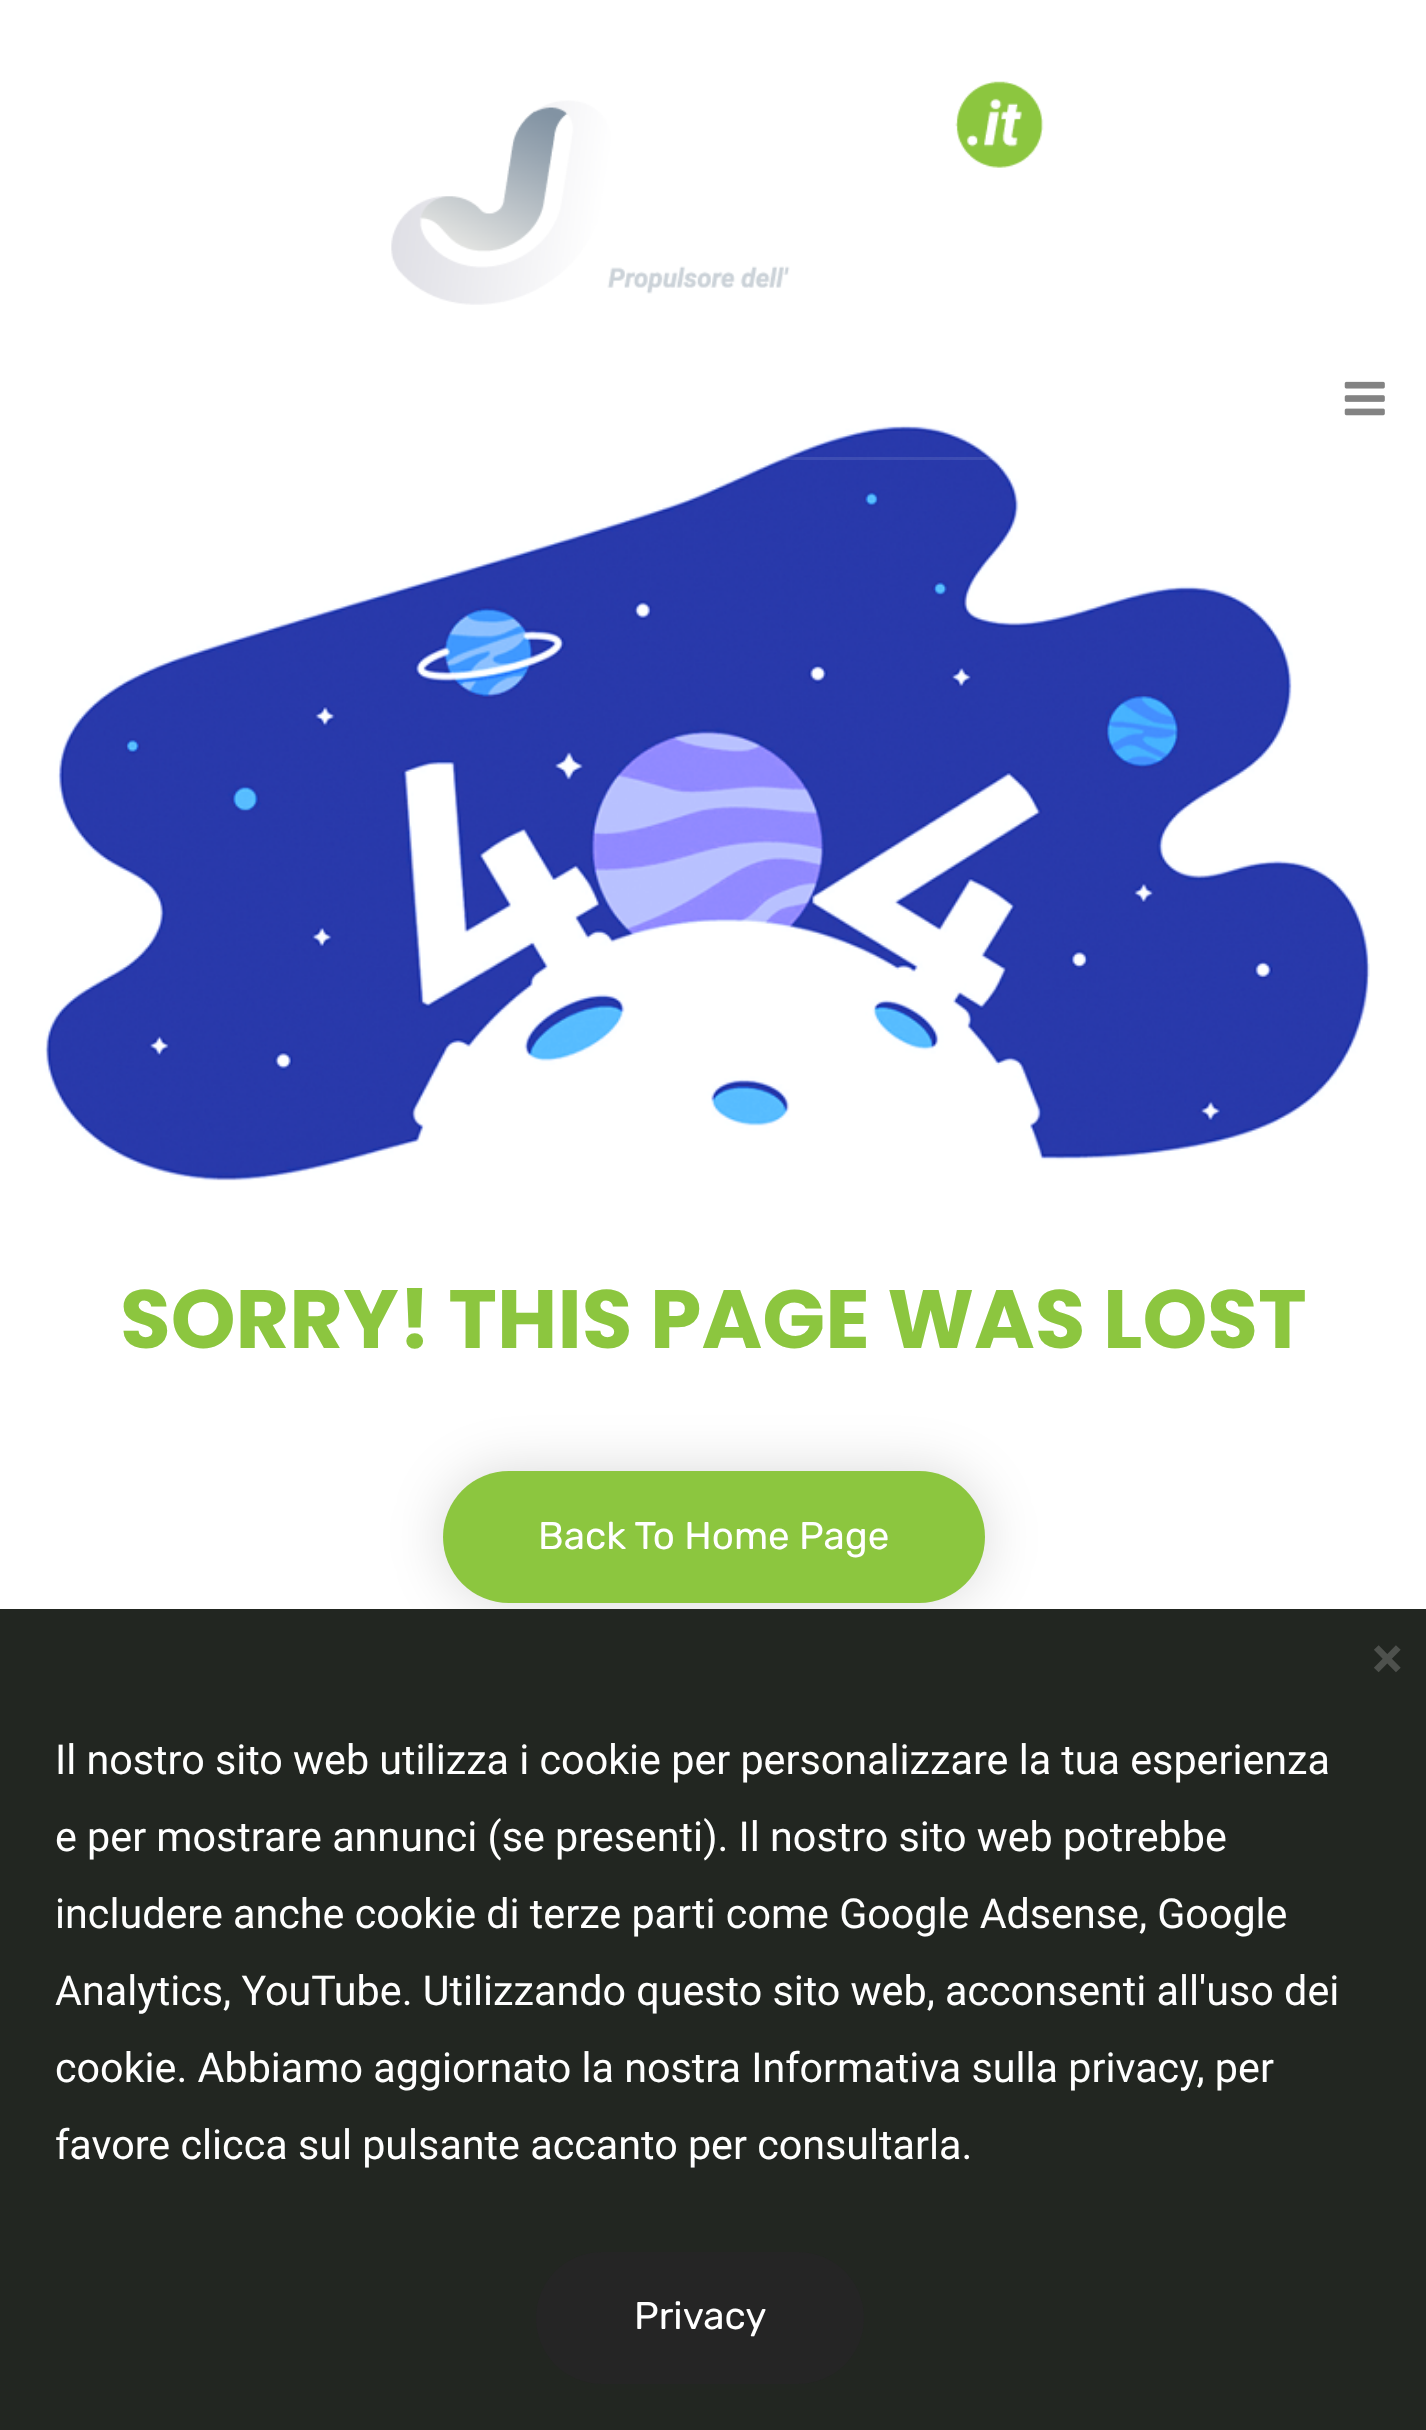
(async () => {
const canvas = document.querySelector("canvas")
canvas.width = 1426
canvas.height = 2430
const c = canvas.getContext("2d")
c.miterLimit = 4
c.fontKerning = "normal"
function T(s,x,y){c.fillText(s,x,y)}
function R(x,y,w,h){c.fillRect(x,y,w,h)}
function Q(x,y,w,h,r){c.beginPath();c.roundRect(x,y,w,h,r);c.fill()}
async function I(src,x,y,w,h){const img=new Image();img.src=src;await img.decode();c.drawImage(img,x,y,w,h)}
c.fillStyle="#fff"
R(0,0,1426,2430)
await I("3.png",45,425,1325,756)
c.fillStyle="#ffffff1a"
R(779,457,215,3)
await I("1.png",391,81,653,224)
await I("2.png",1344,381,41,35)
c.font="bold 82.5px Poppins"
c.fillStyle="#8cc63f"
T("SORRY! THIS PAGE WAS LOST",120,1348)
c.fillStyle="#00000026"
c.filter="blur(27.5px)"
c.beginPath()
c.roundRect(443,1471,542,132,66)
c.fill()
c.filter="none"
c.fillStyle="#8cc63f"
Q(443,1471,542,132,66)
c.font="38.5px Rubik"
c.fillStyle="#fff"
T("Back To Home Page",538,1549)
c.fillStyle="#222621"
R(0,1609,1426,821)
c.font="bold 58px Roboto"
c.fillStyle="#4e514d"
T("×",1372,1678)
c.font="41.25px Roboto"
c.fillStyle="#fff"
T("Il nostro sito web utilizza i cookie per personalizzare la tua esperienza",55,1774)
T("e per mostrare annunci (se presenti). Il nostro sito web potrebbe",55,1851)
T("includere anche cookie di terze parti come Google Adsense, Google",55,1928)
T("Analytics, YouTube. Utilizzando questo sito web, acconsenti all'uso dei",55,2005)
T("cookie. Abbiamo aggiornato la nostra Informativa sulla privacy, per",55,2082)
T("favore clicca sul pulsante accanto per consultarla.",55,2159)
c.fillStyle="#252525"
Q(536,2252,328,132,66)
c.font="38.5px Rubik"
c.fillStyle="#fff"
T("Privacy",634,2329)
})()
